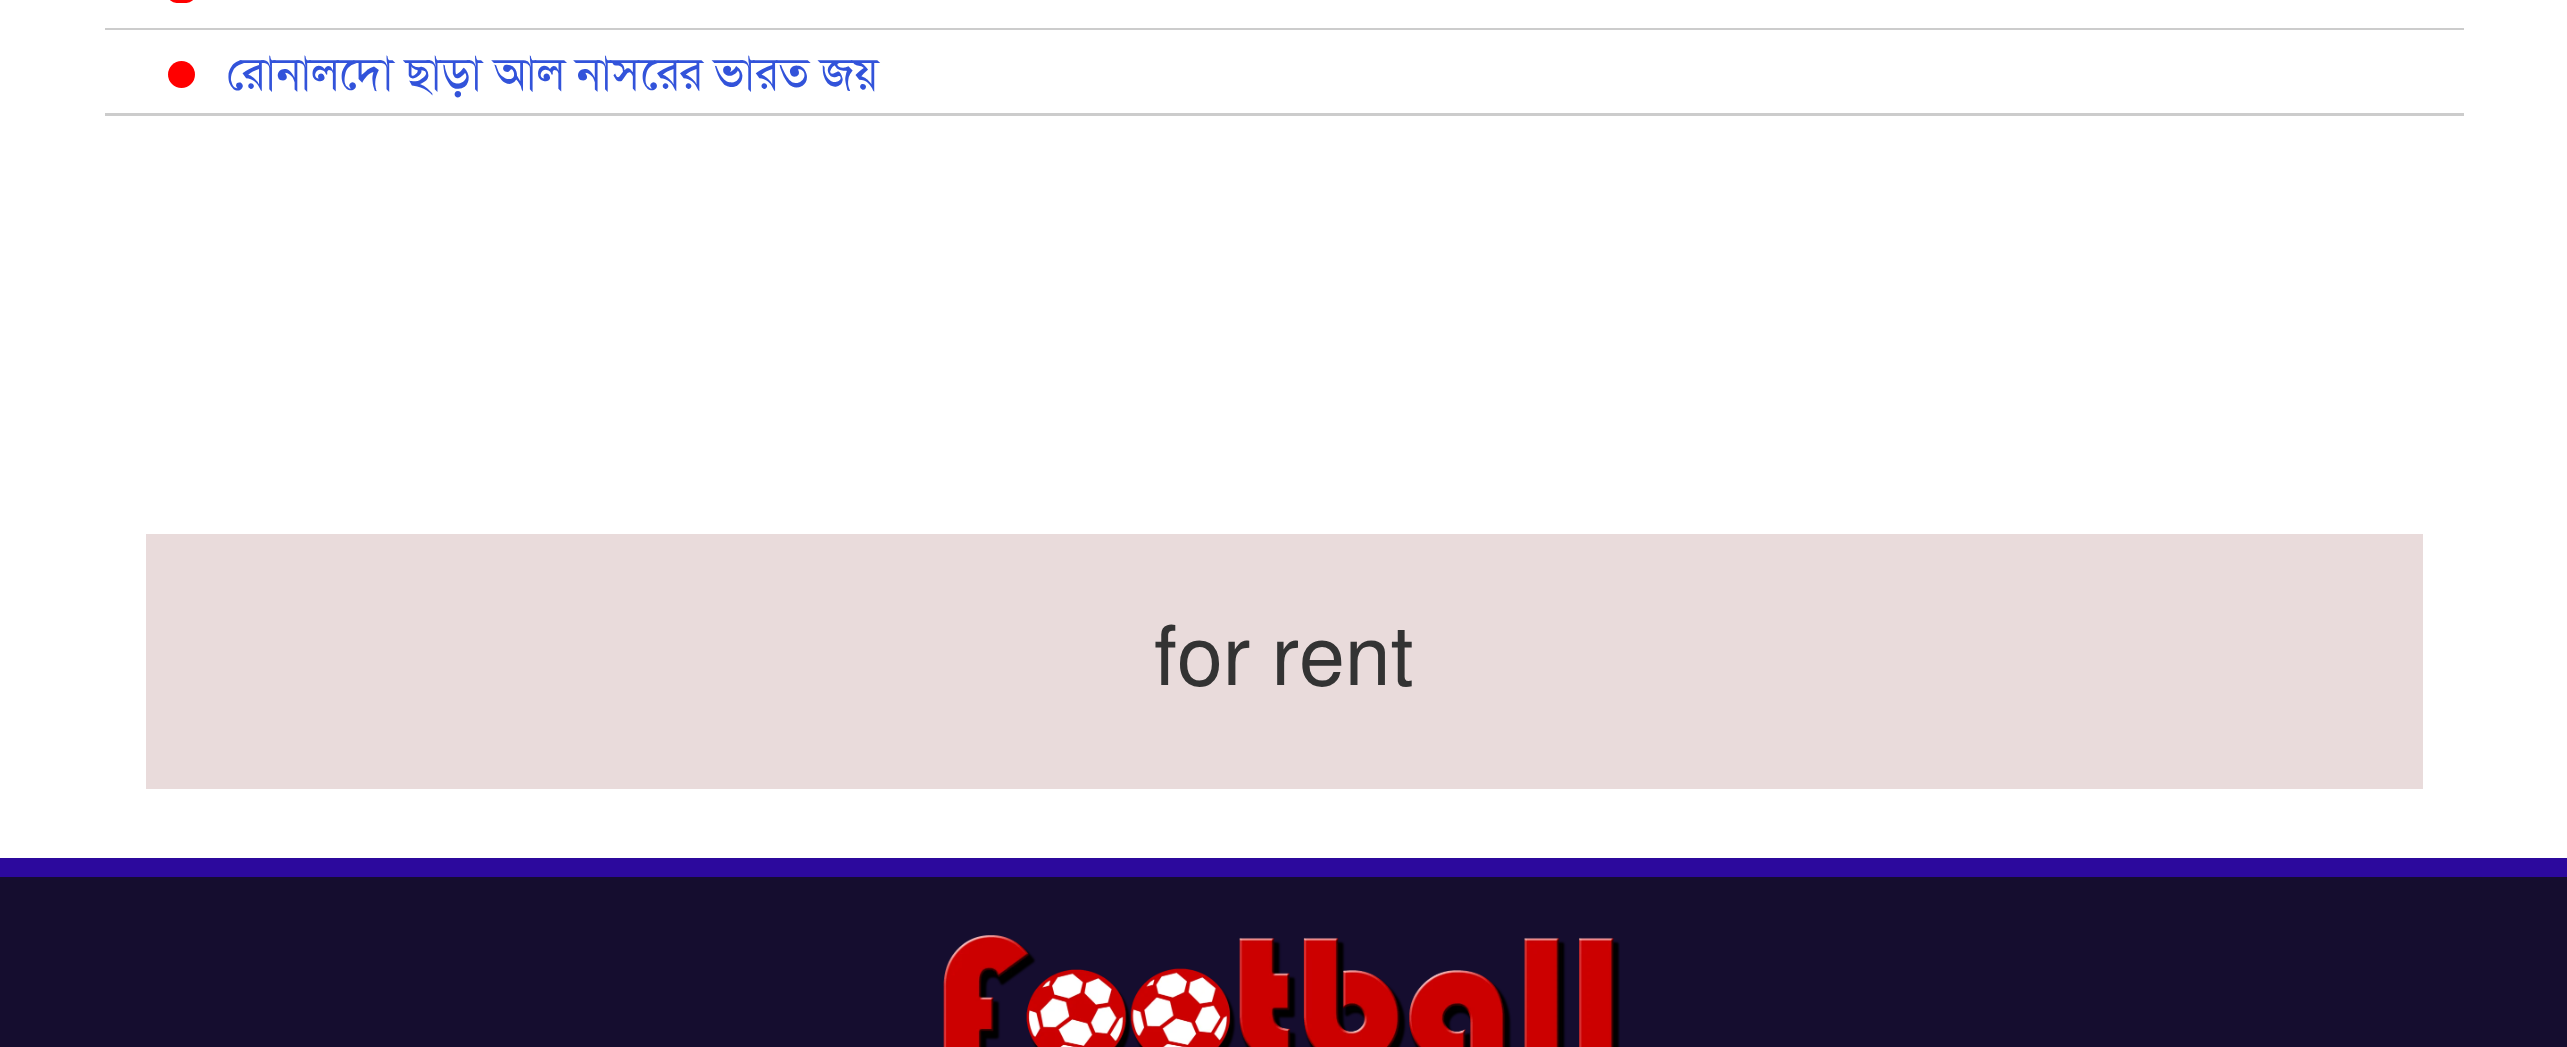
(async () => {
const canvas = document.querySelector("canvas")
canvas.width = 2567
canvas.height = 1047
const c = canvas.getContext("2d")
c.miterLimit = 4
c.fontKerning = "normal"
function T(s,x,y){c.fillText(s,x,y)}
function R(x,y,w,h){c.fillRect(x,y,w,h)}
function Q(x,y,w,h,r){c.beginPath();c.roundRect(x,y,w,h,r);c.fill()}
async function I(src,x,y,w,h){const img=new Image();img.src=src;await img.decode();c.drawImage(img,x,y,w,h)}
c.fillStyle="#fff"
R(0,0,2567,1047)
c.fillStyle="#ccc"
R(105,28,2359,2)
c.fillStyle="#f00"
Q(168,-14,27,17,13.5)
c.fillStyle="#ccc"
R(105,113,2359,3)
c.fillStyle="#f00"
c.beginPath()
c.arc(181.5,74.5,13.5,0,7)
c.fill()
c.font="46.25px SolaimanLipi"
c.fillStyle="#3253da"
T("রোনালদো ছাড়া আল নাসরের ভারত জয়",227,89)
c.fillStyle="#e9dbdb"
R(146,534,2277,255)
c.font="82.5px SolaimanLipi"
c.fillStyle="#333"
T("for rent",1154,685)
c.fillStyle="#150d2f"
R(0,877,2567,170)
c.fillStyle="#2c099d"
R(0,858,2567,19)
await I("1.png",943,935,677,112)
})()
